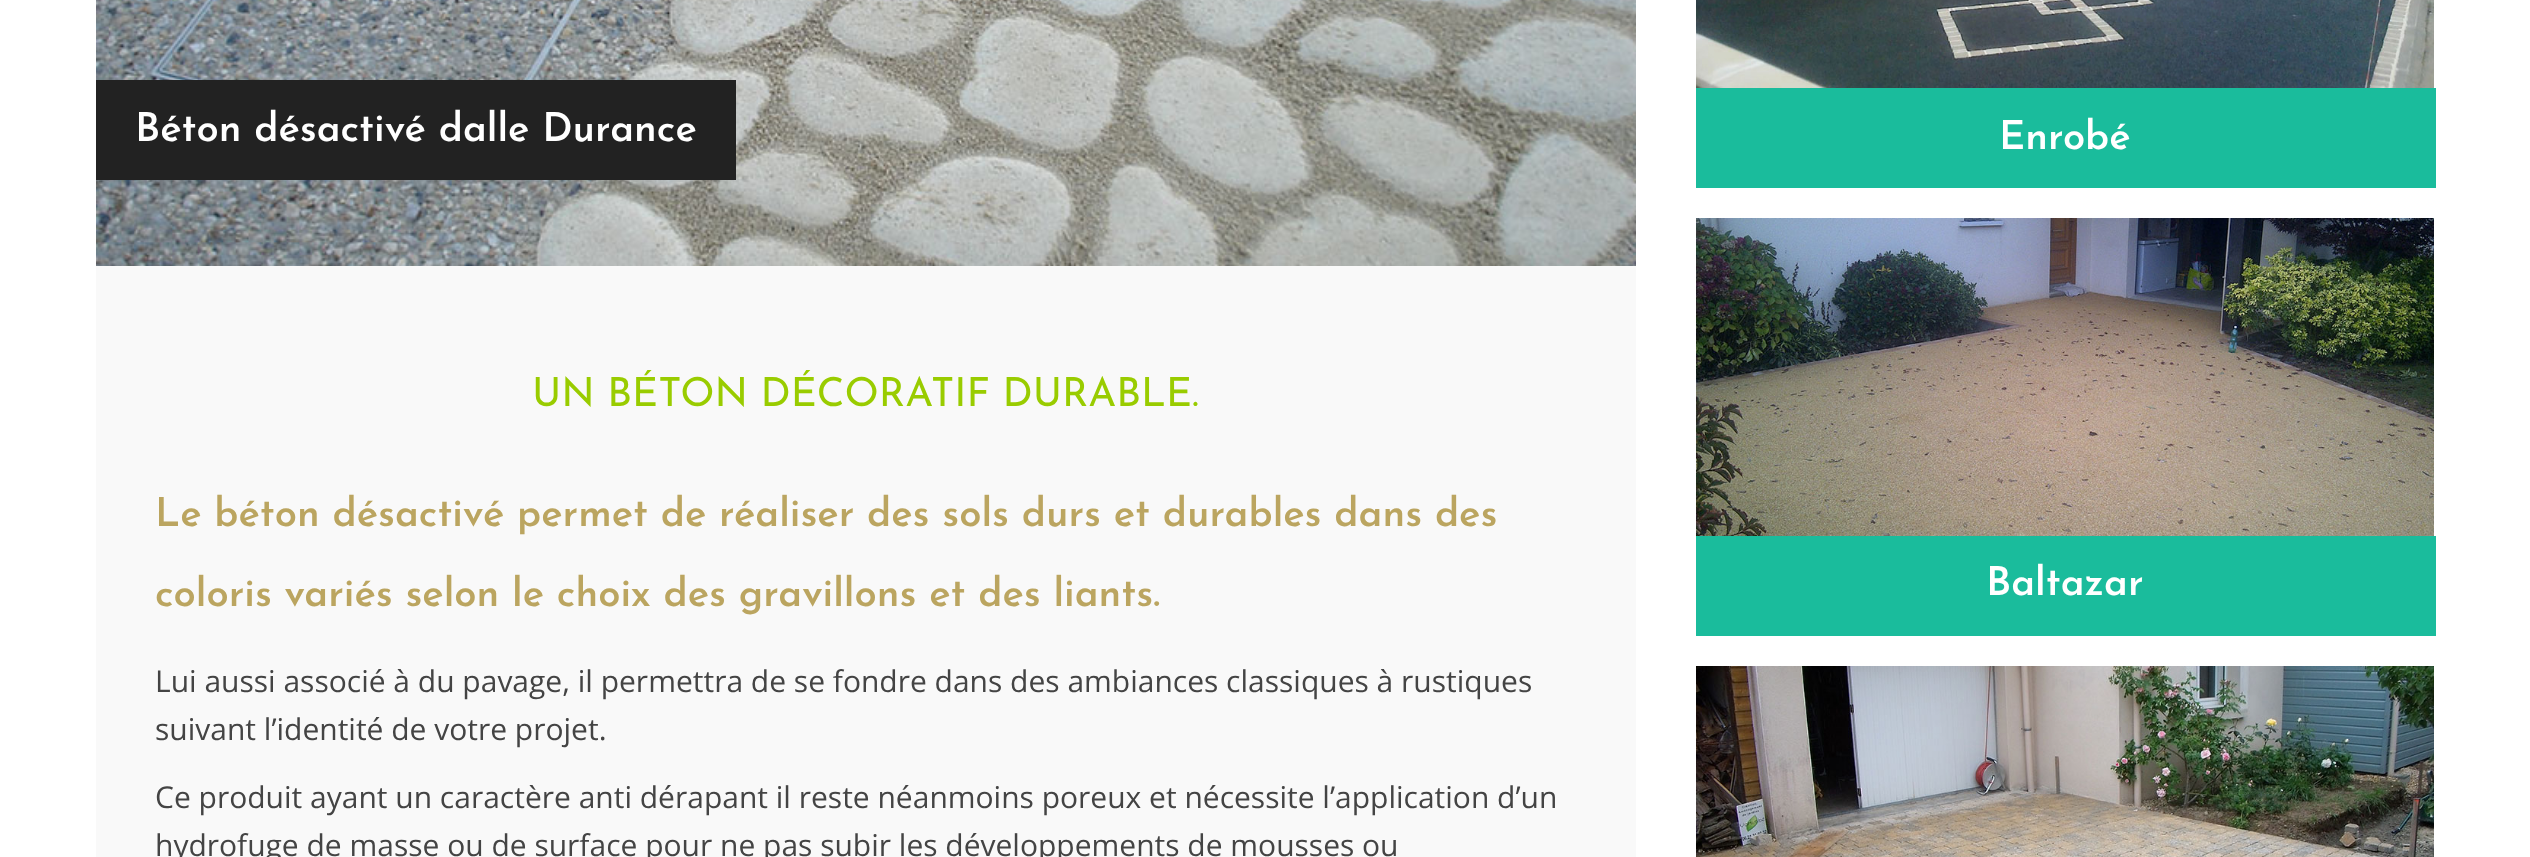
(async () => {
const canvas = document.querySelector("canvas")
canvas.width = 2530
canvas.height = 857
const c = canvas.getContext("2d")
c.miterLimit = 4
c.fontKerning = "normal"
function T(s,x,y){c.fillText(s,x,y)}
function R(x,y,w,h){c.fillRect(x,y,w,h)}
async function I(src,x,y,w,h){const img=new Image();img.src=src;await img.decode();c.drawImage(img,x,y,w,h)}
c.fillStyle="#fff"
R(0,0,2530,857)
await I("1.png",96,0,1540,266)
c.fillStyle="#222"
R(96,80,640,100)
c.font="600 40px Josefin Sans"
c.fillStyle="#fff"
T("Béton désactivé dalle Durance",135,141)
c.fillStyle="#f9f9f9"
R(96,266,1540,591)
c.font="40px Josefin Sans"
c.fillStyle="#9c0"
T("UN BÉTON DÉCORATIF DURABLE.",532,406)
c.font="600 40px Josefin Sans"
c.fillStyle="#bba560"
T("Le béton désactivé permet de réaliser des sols durs et durables dans des",155,526)
T("coloris variés selon le choix des gravillons et des liants.",155,606)
c.font="30px Open Sans"
c.fillStyle="#444"
T("Lui aussi associé à du pavage, il permettra de se fondre dans des ambiances classiques à rustiques",155,692)
T("suivant l’identité de votre projet.",155,740)
T("Ce produit ayant un caractère anti dérapant il reste néanmoins poreux et nécessite l’application d’un",155,808)
T("hydrofuge de masse ou de surface pour ne pas subir les développements de mousses ou",155,856)
await I("2.png",1696,0,738,88)
c.fillStyle="#1abc9c"
R(1696,88,740,100)
c.font="600 40px Josefin Sans"
c.fillStyle="#fff"
T("Enrobé",1999,149)
await I("3.png",1696,218,738,318)
c.fillStyle="#1abc9c"
R(1696,536,740,100)
c.fillStyle="#fff"
T("Baltazar",1986,595)
await I("4.png",1696,666,738,191)
})()
